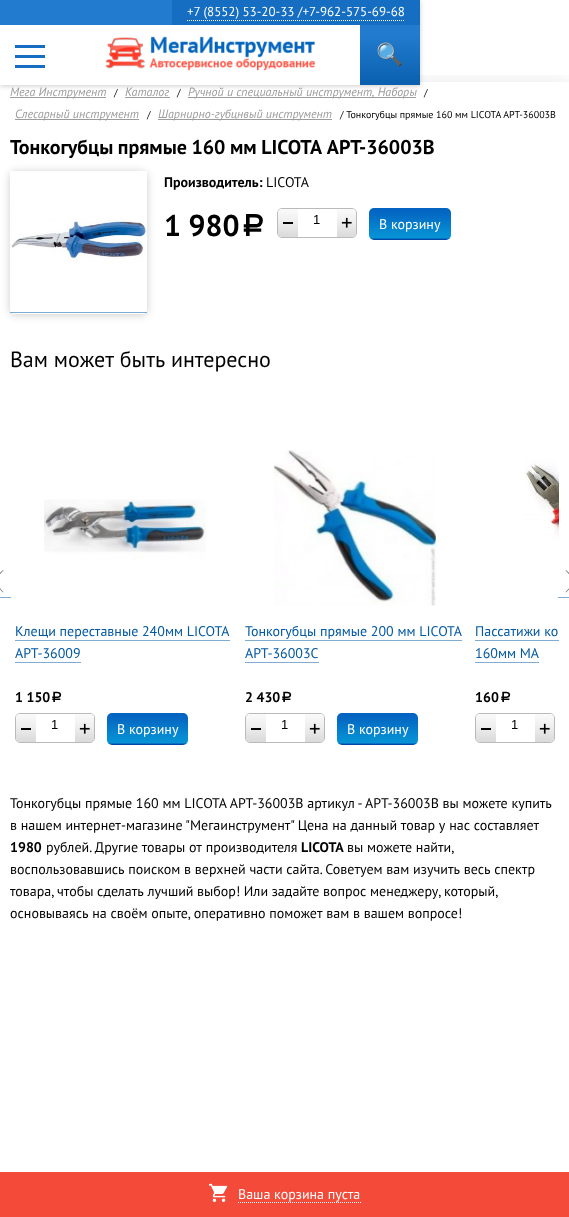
(async () => {
const canvas = document.querySelector("canvas")
canvas.width = 569
canvas.height = 1217
const c = canvas.getContext("2d")
c.miterLimit = 4
c.fontKerning = "normal"
function T(s,x,y){c.fillText(s,x,y)}
function R(x,y,w,h){c.fillRect(x,y,w,h)}
function Q(x,y,w,h,r){c.beginPath();c.roundRect(x,y,w,h,r);c.fill()}
async function I(src,x,y,w,h){const img=new Image();img.src=src;await img.decode();c.drawImage(img,x,y,w,h)}
let gradient, path
c.fillStyle="#fff"
R(0,0,569,1217)
c.fillStyle="#00000033"
c.filter="blur(2.5px)"
c.beginPath()
c.rect(0,1,420,85)
c.fill()
c.filter="none"
c.save()
c.beginPath()
c.rect(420,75,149,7)
c.clip()
c.fillStyle="#0000001a"
c.filter="blur(10px)"
c.beginPath()
c.rect(0,83,569,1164)
c.fill()
c.filter="none"
c.restore()
c.fillStyle="#fff"
R(0,25,360,60)
c.fillStyle="#227bce"
R(0,0,172,25)
c.fillStyle="#156ec1"
R(172,0,248,25)
c.font="13px PT Sans"
c.fillStyle="#fff"
T("+7 (8552) 53-20-33 /+7-962-575-69-68",187,16)
path = new Path2D("M187 20.5h52")
c.strokeStyle="#fff"
c.setLineDash([1,1])
c.stroke(path)
path = new Path2D("M239 20.5h166")
c.stroke(path)
c.fillStyle="#156ec1"
R(15,45,30,3)
R(15,55,30,3)
R(15,65,30,3)
await I("1.png",105,36,210,35)
gradient = c.createLinearGradient(390,25,390,85)
gradient.addColorStop(.17,"#227bce")
gradient.addColorStop(1,"#0a60af")
c.fillStyle = gradient
R(360,25,60,60)
c.font="22px Noto Color Emoji"
c.fillStyle="#fff"
T("🔍",376,62)
c.fillStyle="#9c9c9c"
R(10,97,96,1)
c.font="italic 12px PT Sans"
T("Мега Инструмент",10,96)
c.font="10px PT Sans"
c.fillStyle="#000"
T("/",114,96)
c.fillStyle="#9c9c9c"
R(125,97,45,1)
c.font="italic 12px PT Sans"
T("Каталог",125,96)
c.font="10px PT Sans"
c.fillStyle="#000"
T("/",177,96)
c.fillStyle="#9c9c9c"
R(188,97,228,1)
c.font="italic 12px PT Sans"
T("Ручной и специальный инструмент, Наборы",188,96)
c.font="10px PT Sans"
c.fillStyle="#000"
T("/",424,96)
c.fillStyle="#9c9c9c"
R(15,119,124,1)
c.font="italic 12px PT Sans"
T("Слесарный инструмент",15,118)
c.font="10px PT Sans"
c.fillStyle="#000"
T("/",147,118)
c.fillStyle="#9c9c9c"
R(158,119,174,1)
c.font="italic 12px PT Sans"
T("Шарнирно-губцнвый инструмент",158,118)
c.font="10px PT Sans"
c.fillStyle="#000"
T("/ Тонкогубцы прямые 160 мм LICOTA APT-36003B",340,118)
c.wordSpacing="-0.5px"
c.font="bold 20px PT Sans"
T("Тонкогубцы прямые 160 мм LICOTA APT-36003B",10,154)
c.save()
path = new Path2D("M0 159h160v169h-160zm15 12h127c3 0 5 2 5 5v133c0 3-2 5-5 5h-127c-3 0-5-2-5-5v-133c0-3 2-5 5-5z")
c.clip(path,"evenodd")
c.fillStyle="#00000033"
c.filter="blur(4px)"
c.beginPath()
c.roundRect(10,172,137,143,5)
c.fill()
c.filter="none"
c.restore()
await I("2.png",10,171,137,92)
c.fillStyle="#0258a280"
R(10,312,137,1)
c.wordSpacing="0px"
c.font="bold 14px PT Sans"
c.fillStyle="#000"
T("Производитель:",164,187)
c.font="14px PT Sans"
T("LICOTA",266,187)
c.font="bold 30px PT Sans"
T("1 980",164,236)
c.font="bold 30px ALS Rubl"
T("a",239,236)
c.beginPath()
c.roundRect(277.5,208.5,79,29,4.5)
c.strokeStyle="#bababa"
c.setLineDash([])
c.stroke()
gradient = c.createLinearGradient(288,209,288,237)
gradient.addColorStop(0,"#fafafa")
gradient.addColorStop(.43,"#efefef")
gradient.addColorStop(.93,"#dcdcdc")
gradient.addColorStop(1,"#dbdbdb")
c.fillStyle = gradient
c.beginPath()
c.roundRect(278,209,20,28,[4,0,0,4])
c.fill()
c.fillStyle="#000"
R(283,222,10,2)
c.font="13px Liberation Sans"
T("1",313,224)
gradient = c.createLinearGradient(347,209,347,237)
gradient.addColorStop(0,"#fafafa")
gradient.addColorStop(.43,"#efefef")
gradient.addColorStop(.93,"#dcdcdc")
gradient.addColorStop(1,"#dbdbdb")
c.fillStyle = gradient
c.beginPath()
c.roundRect(337,209,19,28,[0,4,4,0])
c.fill()
await I("3.png",341,217,11,11)
gradient = c.createLinearGradient(410,208,410,240)
gradient.addColorStop(0,"#0462c1")
gradient.addColorStop(.23,"#046bc4")
gradient.addColorStop(.74,"#068bd2")
gradient.addColorStop(.94,"#0693d5")
gradient.addColorStop(.97,"#0346a9")
gradient.addColorStop(1,"#0346a9")
c.fillStyle = gradient
Q(369,208,82,32,5)
c.font="14px PT Sans"
c.fillStyle="#fff"
T("В корзину",379,229)
c.font="22px PT Sans"
c.fillStyle="#000"
T("Вам может быть интересно",10,367)
c.fillStyle="#81acd1"
R(0,597,11,1)
c.fillStyle="#808080"
path = new Path2D("M-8.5 581l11.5-11l.5 .5l-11 11.5zm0 0l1-.5l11 11.5l-.5 .5z")
c.fill(path)
c.fillStyle="#81acd1"
R(558,597,11,1)
c.fillStyle="#808080"
path = new Path2D("M566 570l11.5 11l-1 1l-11-11.5zm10.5 10.5l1 .5l-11.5 11.5l-.5-.5z")
c.fill(path)
await I("4.png",44,499,162,61)
c.font="14px PT Sans"
c.fillStyle="#0258a2"
T("Клещи переставные 240мм LICOTA",15,636)
c.fillStyle="#81acd1"
R(15,640,215,1)
c.fillStyle="#0258a2"
T("APT-36009",15,658)
c.fillStyle="#81acd1"
R(15,662,66,1)
c.font="bold 14px PT Sans"
c.fillStyle="#000"
T("1 150",15,702)
c.font="bold 14px ALS Rubl"
T("a",50,702)
c.beginPath()
c.roundRect(15.5,713.5,79,29,4.5)
c.stroke()
gradient = c.createLinearGradient(26,714,26,742)
gradient.addColorStop(0,"#fafafa")
gradient.addColorStop(.43,"#efefef")
gradient.addColorStop(.93,"#dcdcdc")
gradient.addColorStop(1,"#dbdbdb")
c.fillStyle = gradient
c.beginPath()
c.roundRect(16,714,20,28,[4,0,0,4])
c.fill()
c.fillStyle="#000"
R(21,728,10,2)
c.font="13px Liberation Sans"
T("1",51,729)
gradient = c.createLinearGradient(85,714,85,742)
gradient.addColorStop(0,"#fafafa")
gradient.addColorStop(.43,"#efefef")
gradient.addColorStop(.93,"#dcdcdc")
gradient.addColorStop(1,"#dbdbdb")
c.fillStyle = gradient
c.beginPath()
c.roundRect(75,714,19,28,[0,4,4,0])
c.fill()
await I("5.png",79,723,11,11)
gradient = c.createLinearGradient(148,713,148,745)
gradient.addColorStop(0,"#0462c1")
gradient.addColorStop(.23,"#046bc4")
gradient.addColorStop(.74,"#068bd2")
gradient.addColorStop(.94,"#0693d5")
gradient.addColorStop(.97,"#0346a9")
gradient.addColorStop(1,"#0346a9")
c.fillStyle = gradient
Q(107,713,81,32,5)
c.font="14px PT Sans"
c.fillStyle="#fff"
T("В корзину",117,734)
await I("6.png",274,449,162,157)
c.fillStyle="#0258a2"
T("Тонкогубцы прямые 200 мм LICOTA",245,636)
c.fillStyle="#81acd1"
R(245,640,217,1)
c.fillStyle="#0258a2"
T("APT-36003C",245,658)
c.fillStyle="#81acd1"
R(245,662,74,1)
c.font="bold 14px PT Sans"
c.fillStyle="#000"
T("2 430",245,702)
c.font="bold 14px ALS Rubl"
T("a",280,702)
c.beginPath()
c.roundRect(245.5,713.5,79,29,4.5)
c.stroke()
gradient = c.createLinearGradient(256,714,256,742)
gradient.addColorStop(0,"#fafafa")
gradient.addColorStop(.43,"#efefef")
gradient.addColorStop(.93,"#dcdcdc")
gradient.addColorStop(1,"#dbdbdb")
c.fillStyle = gradient
c.beginPath()
c.roundRect(246,714,20,28,[4,0,0,4])
c.fill()
c.fillStyle="#000"
R(251,728,10,2)
c.font="13px Liberation Sans"
T("1",281,729)
gradient = c.createLinearGradient(315,714,315,742)
gradient.addColorStop(0,"#fafafa")
gradient.addColorStop(.43,"#efefef")
gradient.addColorStop(.93,"#dcdcdc")
gradient.addColorStop(1,"#dbdbdb")
c.fillStyle = gradient
c.beginPath()
c.roundRect(305,714,19,28,[0,4,4,0])
c.fill()
await I("5.png",309,723,11,11)
gradient = c.createLinearGradient(378,713,378,745)
gradient.addColorStop(0,"#0462c1")
gradient.addColorStop(.23,"#046bc4")
gradient.addColorStop(.74,"#068bd2")
gradient.addColorStop(.94,"#0693d5")
gradient.addColorStop(.97,"#0346a9")
gradient.addColorStop(1,"#0346a9")
c.fillStyle = gradient
Q(337,713,81,32,5)
c.font="14px PT Sans"
c.fillStyle="#fff"
T("В корзину",347,734)
await I("7.png",523,459,36,80)
c.fillStyle="#0258a2"
T("Пассатижи ко",475,636)
c.fillStyle="#81acd1"
R(475,640,84,1)
c.fillStyle="#0258a2"
T("160мм МА",475,658)
c.fillStyle="#81acd1"
R(475,662,64,1)
c.font="bold 14px PT Sans"
c.fillStyle="#000"
T("160",475,702)
c.font="bold 14px ALS Rubl"
T("a",499,702)
c.beginPath()
c.roundRect(475.5,713.5,79,29,4.5)
c.stroke()
gradient = c.createLinearGradient(486,714,486,742)
gradient.addColorStop(0,"#fafafa")
gradient.addColorStop(.43,"#efefef")
gradient.addColorStop(.93,"#dcdcdc")
gradient.addColorStop(1,"#dbdbdb")
c.fillStyle = gradient
c.beginPath()
c.roundRect(476,714,20,28,[4,0,0,4])
c.fill()
c.fillStyle="#000"
R(481,728,10,2)
c.font="13px Liberation Sans"
T("1",511,729)
gradient = c.createLinearGradient(545,714,545,742)
gradient.addColorStop(0,"#fafafa")
gradient.addColorStop(.43,"#efefef")
gradient.addColorStop(.93,"#dcdcdc")
gradient.addColorStop(1,"#dbdbdb")
c.fillStyle = gradient
c.beginPath()
c.roundRect(535,714,19,28,[0,4,4,0])
c.fill()
await I("5.png",539,723,11,11)
c.font="14px PT Sans"
c.fillStyle="#000"
T("Тонкогубцы прямые 160 мм LICOTA APT-36003B артикул - APT-36003B вы можете купить",10,808)
T("в нашем интернет-магазине \"Мегаинструмент\" Цена на данный товар у нас составляет",10,830)
c.font="bold 14px PT Sans"
T("1980",10,852)
c.font="14px PT Sans"
T("рублей. Другие товары от производителя",46,852)
c.font="bold 14px PT Sans"
T("LICOTA",301,852)
c.font="14px PT Sans"
T("вы можете найти,",347,852)
T("воспользовавшись поиском в верхней части сайта. Советуем вам изучить весь спектр",10,874)
c.wordSpacing="-0.1px"
T("товара, чтобы сделать лучший выбор! Или задайте вопрос менеджеру, который,",10,896)
c.wordSpacing="0px"
T("основываясь на своём опыте, оперативно поможет вам в вашем вопросе!",10,918)
c.fillStyle="#f44a39"
R(0,1172,569,45)
await I("8.png",209,1183,19,20)
path = new Path2D("M238 1202.5h123")
c.strokeStyle="#fff"
c.setLineDash([1,1])
c.stroke(path)
c.fillStyle="#fff"
T("Ваша корзина пуста",238,1199)
})()
